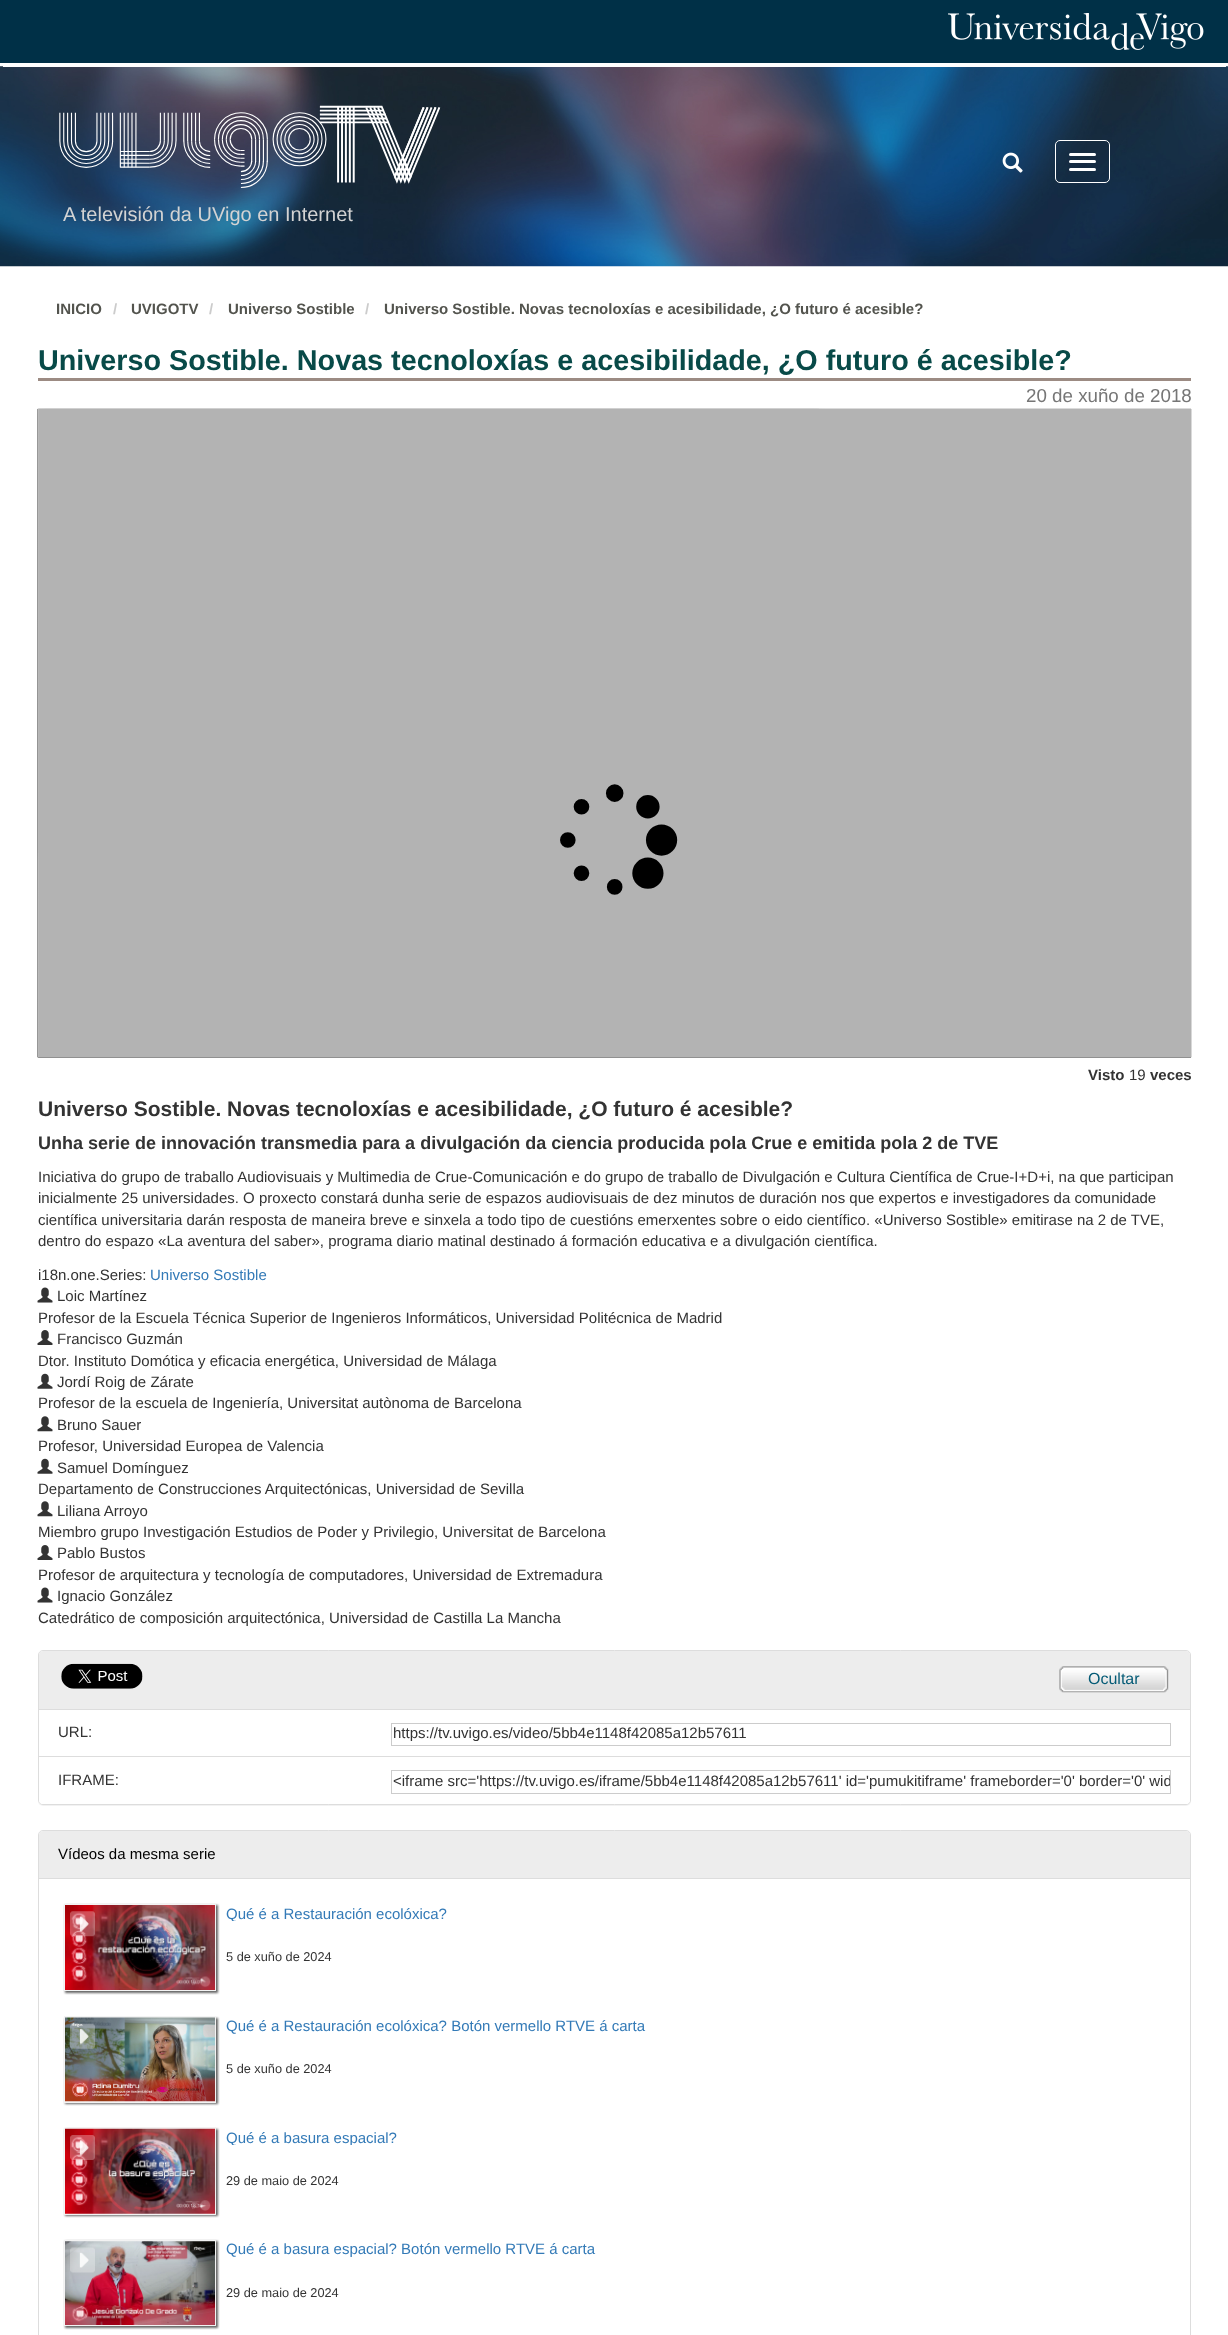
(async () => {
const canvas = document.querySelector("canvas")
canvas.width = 1228
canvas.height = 2335
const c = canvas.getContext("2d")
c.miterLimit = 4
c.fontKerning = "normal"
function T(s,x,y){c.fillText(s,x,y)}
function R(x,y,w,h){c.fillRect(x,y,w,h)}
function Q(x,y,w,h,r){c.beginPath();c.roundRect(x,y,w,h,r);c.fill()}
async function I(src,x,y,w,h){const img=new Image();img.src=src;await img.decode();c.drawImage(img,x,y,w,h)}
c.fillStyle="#fff"
R(0,0,1228,2335)
await I("2.png",0,66,1228,201)
R(3,66,1223,1)
c.fillStyle="#003047"
R(0,0,1228,63)
await I("1.png",948,13,256,37)
await I("3.png",1002,152,21,21)
c.beginPath()
c.roundRect(1055.5,140.5,54,42,4.5)
c.strokeStyle="#fff"
c.stroke()
c.fillStyle="#fff"
Q(1069,153,27,3,1.5)
Q(1069,160,27,3,1.5)
Q(1069,168,27,3,1.5)
await I("4.png",59,105,382,83)
c.font="20px Liberation Sans"
c.fillStyle="#d3d3d3"
T("A televisión da UVigo en Internet",63,221)
c.font="bold 15px Liberation Sans"
c.fillStyle="#53544e"
T("INICIO",56,314)
c.fillStyle="#ccc"
T("/",113,314)
c.fillStyle="#53544e"
T("UVIGOTV",131,314)
c.fillStyle="#ccc"
T("/",209,314)
c.fillStyle="#53544e"
T("Universo Sostible",228,314)
c.fillStyle="#ccc"
T("/",365,314)
c.fillStyle="#53544e"
T("Universo Sostible. Novas tecnoloxías e acesibilidade, ¿O futuro é acesible?",384,314)
c.fillStyle="#9c8b83"
R(38,378,1153,3)
c.font="bold 28.75px Liberation Sans"
c.fillStyle="#084a48"
T("Universo Sostible. Novas tecnoloxías e acesibilidade, ¿O futuro é acesible?",38,370)
c.font="18.75px Liberation Sans"
c.fillStyle="#767676"
T("20 de xuño de 2018",1026,402)
await I("5.png",37,408,1155,650)
c.font="bold 15px Liberation Sans"
c.fillStyle="#333"
T("Visto",1088,1080)
c.font="15px Liberation Sans"
T("19",1129,1080)
c.font="bold 15px Liberation Sans"
T("veces",1150,1080)
c.font="bold 21px Liberation Sans"
T("Universo Sostible. Novas tecnoloxías e acesibilidade, ¿O futuro é acesible?",38,1116)
c.font="bold 18px Liberation Sans"
T("Unha serie de innovación transmedia para a divulgación da ciencia producida pola Crue e emitida pola 2 de TVE",38,1149)
c.font="15px Liberation Sans"
T("Iniciativa do grupo de traballo Audiovisuais y Multimedia de Crue-Comunicación e do grupo de traballo de Divulgación e Cultura Científica de Crue-I+D+i, na que participan",38,1182)
T("inicialmente 25 universidades. O proxecto constará dunha serie de espazos audiovisuais de dez minutos de duración nos que expertos e investigadores da comunidade",38,1203)
T("científica universitaria darán resposta de maneira breve e sinxela a todo tipo de cuestións emerxentes sobre o eido científico. «Universo Sostible» emitirase na 2 de TVE,",38,1225)
T("dentro do espazo «La aventura del saber», programa diario matinal destinado á formación educativa e a divulgación científica.",38,1246)
T("i18n.one.Series:",38,1280)
c.fillStyle="#337ab7"
T("Universo Sostible",150,1280)
await I("6.png",37,1287,16,16)
c.fillStyle="#333"
T("Loic Martínez",57,1301)
T("Profesor de la Escuela Técnica Superior de Ingenieros Informáticos, Universidad Politécnica de Madrid",38,1323)
await I("7.png",37,1330,16,15)
T("Francisco Guzmán",57,1344)
T("Dtor. Instituto Domótica y eficacia energética, Universidad de Málaga",38,1366)
await I("8.png",37,1373,16,16)
T("Jordí Roig de Zárate",57,1387)
T("Profesor de la escuela de Ingeniería, Universitat autònoma de Barcelona",38,1408)
await I("9.png",37,1416,16,16)
T("Bruno Sauer",57,1430)
T("Profesor, Universidad Europea de Valencia",38,1451)
await I("8.png",37,1458,16,16)
T("Samuel Domínguez",57,1473)
T("Departamento de Construcciones Arquitectónicas, Universidad de Sevilla",38,1494)
await I("9.png",37,1501,16,16)
T("Liliana Arroyo",57,1516)
T("Miembro grupo Investigación Estudios de Poder y Privilegio, Universitat de Barcelona",38,1537)
await I("7.png",37,1545,16,15)
T("Pablo Bustos",57,1558)
T("Profesor de arquitectura y tecnología de computadores, Universidad de Extremadura",38,1580)
await I("6.png",37,1587,16,16)
T("Ignacio González",57,1601)
T("Catedrático de composición arquitectónica, Universidad de Castilla La Mancha",38,1623)
c.fillStyle="#0000000d"
c.filter="blur(0.5px)"
c.beginPath()
c.roundRect(38,1651,1153,155,5)
c.fill()
c.filter="none"
c.fillStyle="#fff"
c.beginPath()
c.roundRect(38.5,1650.5,1152,154,4.5)
c.fill()
c.strokeStyle="#ddd"
c.stroke()
c.fillStyle="#ededed"
c.beginPath()
c.roundRect(39,1651,1151,59,[4,4,0,0])
c.fill()
c.fillStyle="#ddd"
R(39,1709,1151,1)
await I("10.png",61,1663,82,26)
await I("11.png",1059,1666,110,27)
c.font="16px Liberation Sans"
c.fillStyle="#055b76"
T("Ocultar",1088,1684)
c.font="15px Liberation Sans"
c.fillStyle="#333"
T("URL:",58,1737)
c.strokeStyle="#ccc"
c.strokeRect(391.5,1723.5,779,22)
T("https://tv.uvigo.es/video/5bb4e1148f42085a12b57611",393,1738)
c.fillStyle="#fff"
c.beginPath()
c.roundRect(39,1756,1151,48,[0,0,4,4])
c.fill()
c.fillStyle="#ddd"
R(39,1756,1151,1)
c.fillStyle="#333"
T("IFRAME:",58,1785)
c.strokeRect(391.5,1770.5,779,23)
c.save()
c.beginPath()
c.rect(393,1771,777,22)
c.clip()
T("<iframe src='https://tv.uvigo.es/iframe/5bb4e1148f42085a12b57611' id='pumukitiframe' frameborder='0' border='0' wid",393,1786)
c.restore()
c.beginPath()
c.roundRect(38.5,1830.5,1152,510,4.5)
c.strokeStyle="#ddd"
c.stroke()
c.fillStyle="#ededed"
c.beginPath()
c.roundRect(39,1831,1151,48,[4,4,0,0])
c.fill()
c.fillStyle="#ddd"
R(39,1878,1151,1)
c.fillStyle="#000"
T("Vídeos da mesma serie",58,1859)
c.fillStyle="#666"
c.filter="blur(1px)"
c.beginPath()
c.rect(65,1905,153,88)
c.fill()
c.filter="none"
c.fillStyle="#f3f3f3"
R(64,1904,152,87)
await I("12.png",65,1905,150,85)
await I("13.png",70,1911,25,26)
c.save()
c.beginPath()
c.rect(226,1904,939,17)
c.clip()
c.fillStyle="#337ab7"
T("Qué é a Restauración ecolóxica?",226,1919)
c.restore()
c.font="12.75px Liberation Sans"
c.fillStyle="#333"
T("5 de xuño de 2024",226,1961)
c.fillStyle="#666"
c.filter="blur(1px)"
c.beginPath()
c.rect(65,2018,153,86)
c.fill()
c.filter="none"
c.fillStyle="#f3f3f3"
R(64,2016,152,87)
await I("14.png",65,2017,150,85)
await I("15.png",70,2023,25,26)
c.font="15px Liberation Sans"
c.fillStyle="#337ab7"
T("Qué é a Restauración ecolóxica? Botón vermello RTVE á carta",226,2031)
c.font="12.75px Liberation Sans"
c.fillStyle="#333"
T("5 de xuño de 2024",226,2073)
c.fillStyle="#666"
c.filter="blur(1px)"
c.beginPath()
c.rect(65,2129,153,87)
c.fill()
c.filter="none"
c.fillStyle="#f3f3f3"
R(64,2128,152,87)
await I("16.png",65,2128,150,86)
await I("17.png",70,2135,25,25)
c.save()
c.beginPath()
c.rect(226,2128,939,17)
c.clip()
c.font="15px Liberation Sans"
c.fillStyle="#337ab7"
T("Qué é a basura espacial?",226,2143)
c.restore()
c.fillStyle="#333"
T("29 de maio de 2024",226,2185)
c.fillStyle="#666"
c.filter="blur(1px)"
c.beginPath()
c.rect(65,2241,153,87)
c.fill()
c.filter="none"
c.fillStyle="#f3f3f3"
R(64,2240,152,86)
await I("18.png",65,2241,150,84)
await I("19.png",70,2247,25,26)
c.font="15px Liberation Sans"
c.fillStyle="#337ab7"
T("Qué é a basura espacial? Botón vermello RTVE á carta",226,2254)
c.font="12.75px Liberation Sans"
c.fillStyle="#333"
T("29 de maio de 2024",226,2297)
})()
